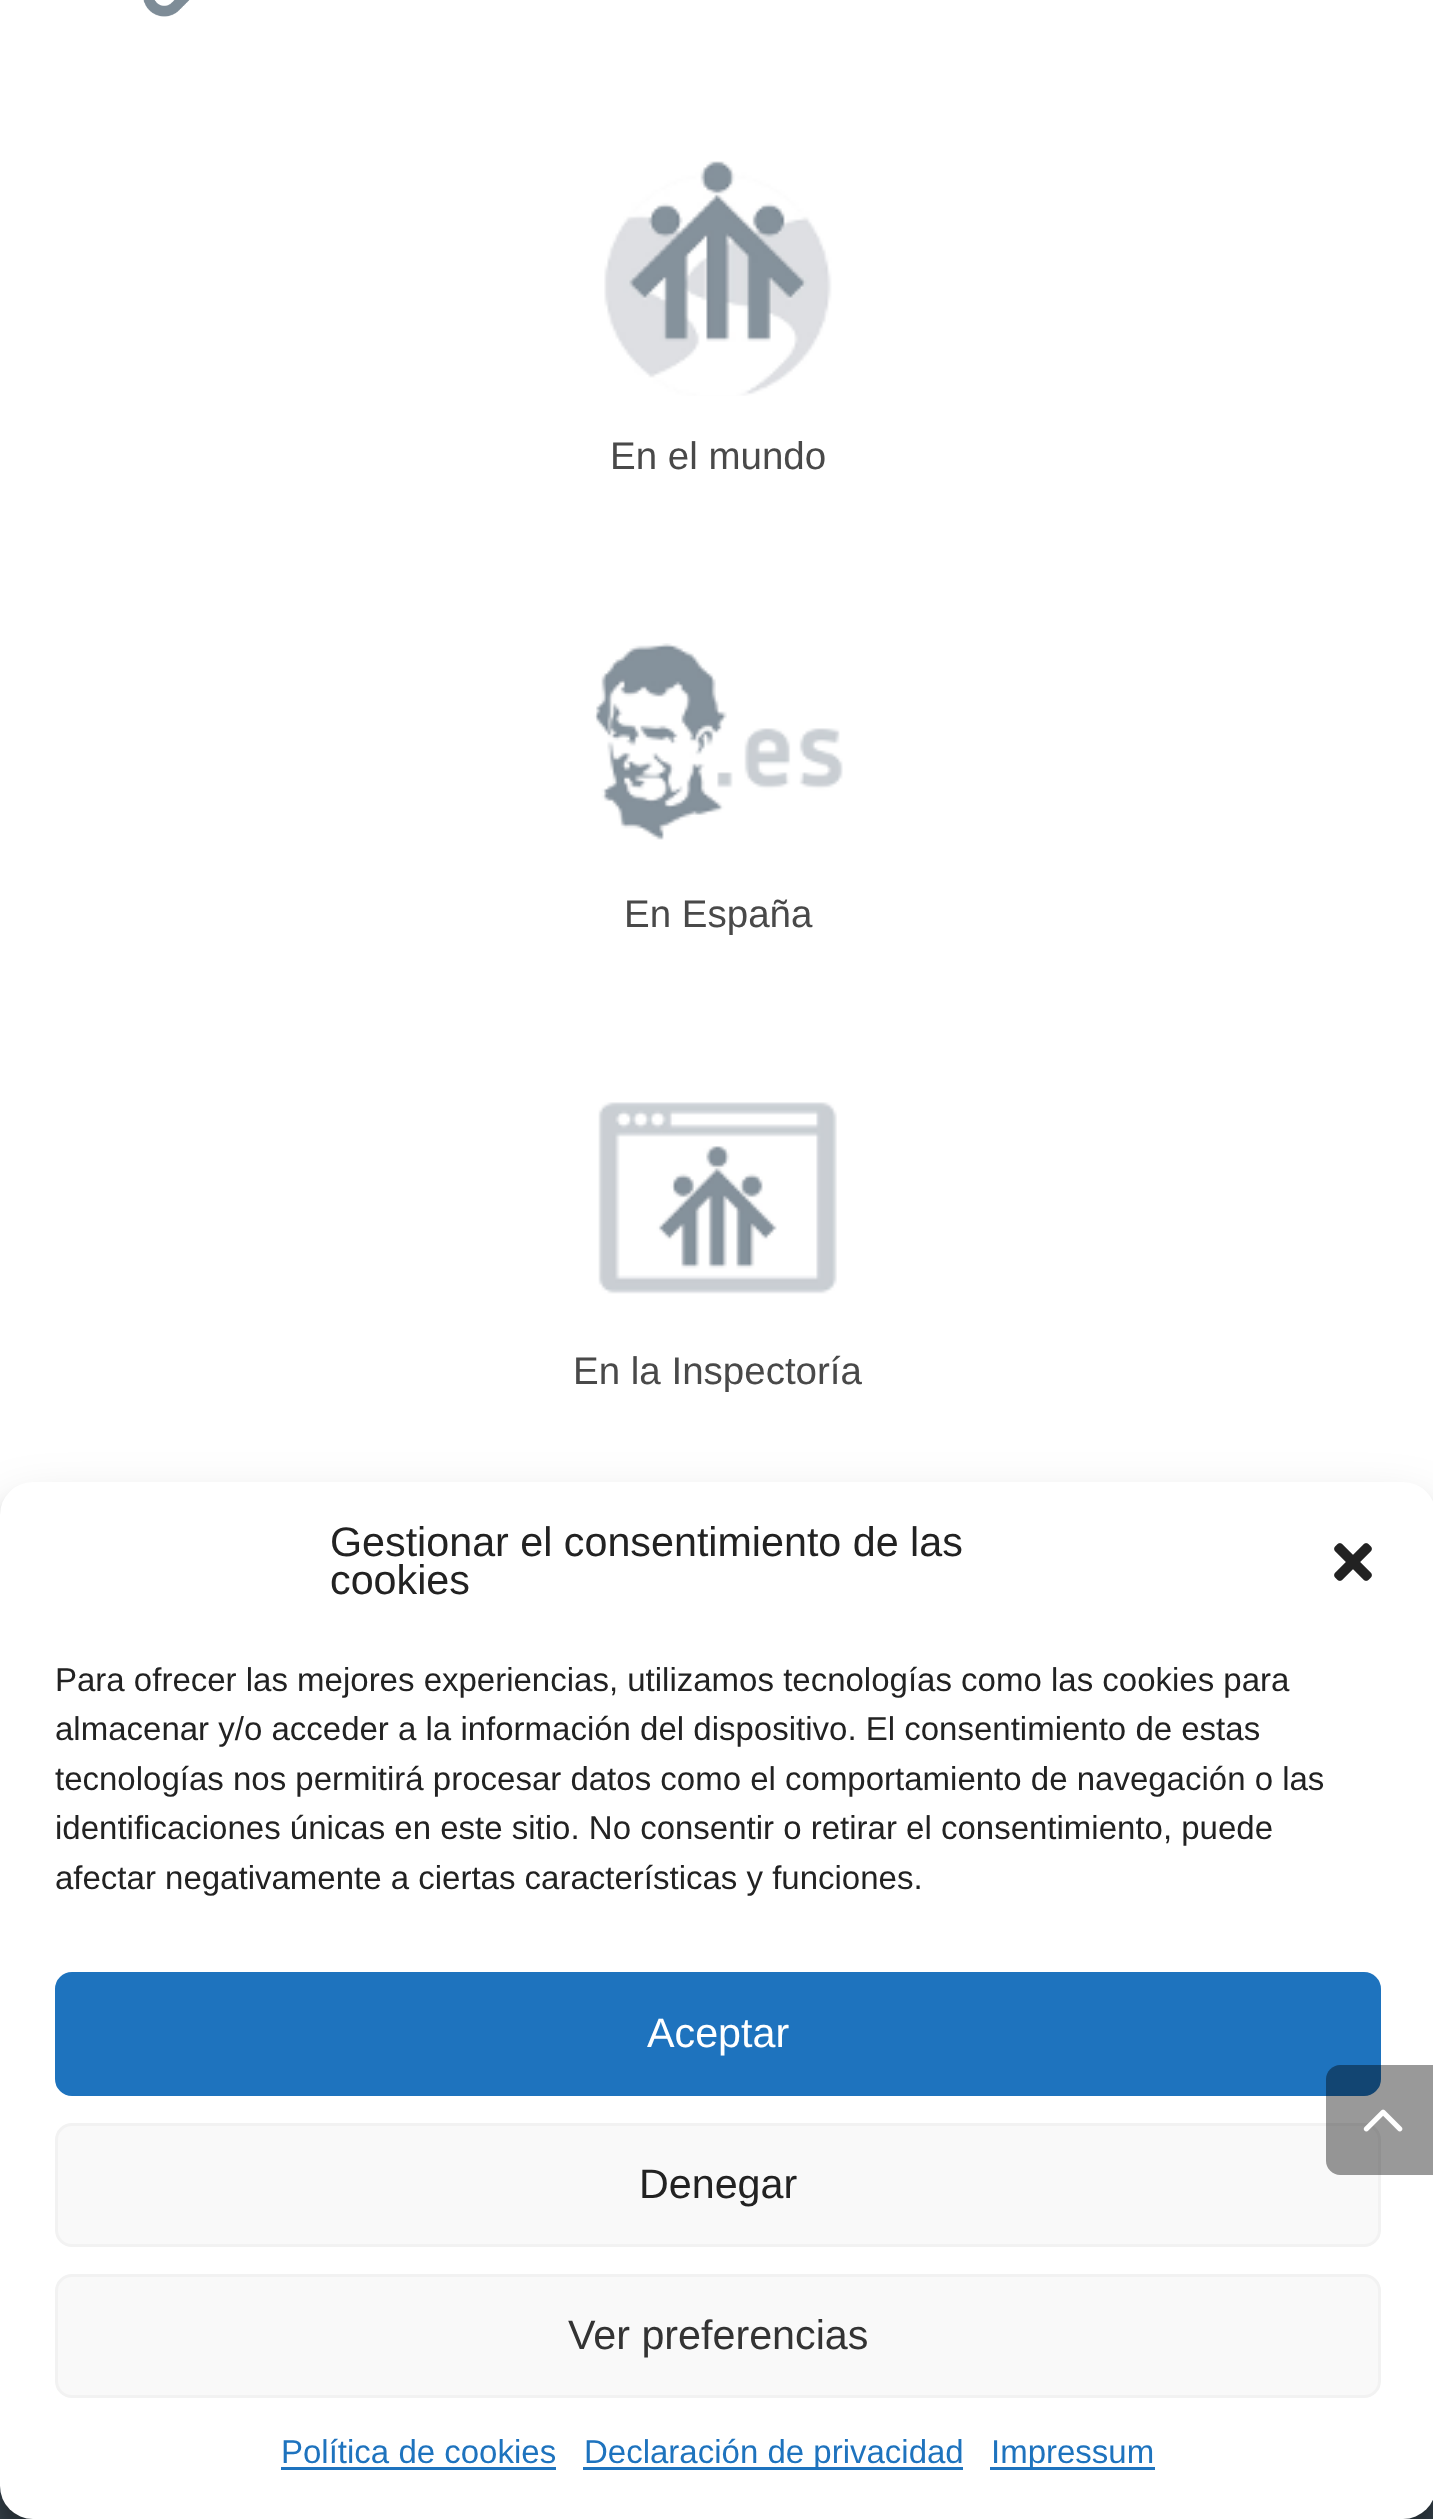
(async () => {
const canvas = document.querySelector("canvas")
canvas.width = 1433
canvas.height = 2519
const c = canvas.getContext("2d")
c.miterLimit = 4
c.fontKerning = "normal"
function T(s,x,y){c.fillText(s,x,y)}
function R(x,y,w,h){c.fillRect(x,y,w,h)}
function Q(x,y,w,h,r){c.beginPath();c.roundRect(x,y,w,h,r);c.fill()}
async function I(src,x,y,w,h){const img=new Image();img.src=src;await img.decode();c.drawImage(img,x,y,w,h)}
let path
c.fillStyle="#fff"
R(0,0,1433,2519)
await I("1.png",143,0,47,17)
await I("2.png",604,161,228,235)
c.font="38.5px Liberation Sans"
c.fillStyle="#494949"
T("En el mundo",610,469)
await I("3.png",594,643,249,197)
T("En España",624,927)
await I("4.png",598,1102,239,192)
T("En la Inspectoría",573,1384)
c.fillStyle="#37434c"
R(0,2486,1433,33)
c.fillStyle="#0000003b"
c.filter="blur(8px)"
c.beginPath()
c.roundRect(0,1499,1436,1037,33)
c.fill()
c.filter="none"
c.fillStyle="#00000030"
c.filter="blur(27.5px)"
c.beginPath()
c.roundRect(0,1510,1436,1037,33)
c.fill()
c.filter="none"
c.fillStyle="#fff"
Q(0,1482,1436,1037,33)
c.fillStyle="#1e73be"
c.beginPath()
c.roundRect(56.5,1973.5,1323,121,15.5)
c.fill()
c.strokeStyle="#1e73be"
c.lineWidth=3
c.stroke()
c.fillStyle="#f9f9f9"
c.beginPath()
c.roundRect(56.5,2124.5,1323,121,15.5)
c.fill()
c.strokeStyle="#f2f2f2"
c.stroke()
c.fillStyle="#00000066"
path = new Path2D("M1340 2065h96v110h-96c-7.5 0-14-6.5-14-14v-82c0-7.5 6.5-14 14-14z")
c.fill(path)
await I("5.png",1363,2109,40,23)
c.font="41.25px Liberation Sans"
c.fillStyle="#222"
T("Gestionar el consentimiento de las",330,1556)
T("cookies",330,1594)
await I("6.png",1334,1543,38,38)
c.font="33px Liberation Sans"
T("Para ofrecer las mejores experiencias, utilizamos tecnologías como las cookies para",55,1691)
T("almacenar y/o acceder a la información del dispositivo. El consentimiento de estas",55,1740)
T("tecnologías nos permitirá procesar datos como el comportamiento de navegación o las",55,1790)
T("identificaciones únicas en este sitio. No consentir o retirar el consentimiento, puede",55,1839)
T("afectar negativamente a ciertas características y funciones.",55,1889)
c.font="41.25px Liberation Sans"
c.fillStyle="#fff"
T("Aceptar",647,2047)
c.fillStyle="#222"
T("Denegar",639,2198)
c.fillStyle="#f9f9f9"
c.beginPath()
c.roundRect(56.5,2275.5,1323,121,15.5)
c.fill()
c.stroke()
c.fillStyle="#333"
T("Ver preferencias",568,2349)
c.font="33px Liberation Sans"
c.fillStyle="#1e73be"
T("Política de cookies",281,2463)
R(281,2467,275,3)
R(583,2467,380,3)
T("Declaración de privacidad",584,2463)
R(990,2467,165,3)
T("Impressum",991,2463)
})()
